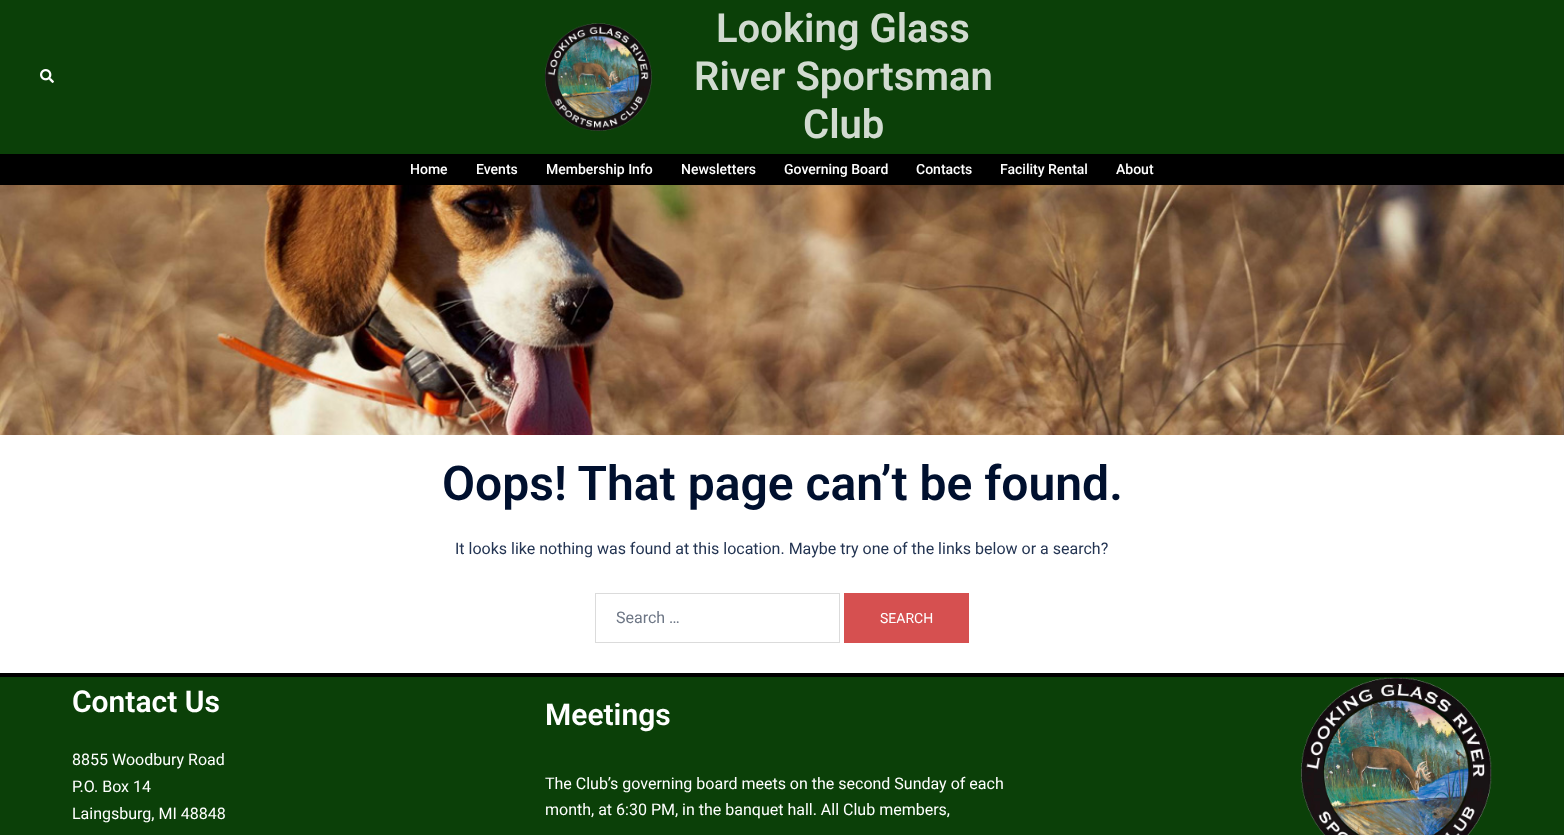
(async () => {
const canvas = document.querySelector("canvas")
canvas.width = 1564
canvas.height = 835
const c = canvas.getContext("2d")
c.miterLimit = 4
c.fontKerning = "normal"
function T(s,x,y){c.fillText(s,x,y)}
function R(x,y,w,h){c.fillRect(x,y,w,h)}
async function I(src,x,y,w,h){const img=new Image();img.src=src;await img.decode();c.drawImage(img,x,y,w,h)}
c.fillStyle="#fff"
R(0,0,1564,835)
c.fillStyle="#0b4008"
R(0,0,1564,154)
c.fillStyle="#000"
R(0,154,1564,31)
await I("1.png",40,69,14,14)
await I("2.png",545,23,107,108)
c.font="600 40px Roboto"
c.fillStyle="#d1dbd0"
T("Looking Glass",716,42)
T("River Sportsman",694,90)
T("Club",803,138)
c.font="500 14px Roboto"
c.fillStyle="#fff"
T("Home",410,174)
T("Events",476,174)
T("Membership Info",546,174)
T("Newsletters",681,174)
T("Governing Board",784,174)
T("Contacts",916,174)
T("Facility Rental",1000,174)
T("About",1116,174)
await I("3.png",0,185,1564,250)
c.font="600 48px Roboto"
c.fillStyle="#00102e"
T("Oops! That page can’t be found.",442,500)
c.font="16px Roboto"
c.fillStyle="#233452"
T("It looks like nothing was found at this location. Maybe try one of the links below or a search?",455,554)
c.strokeStyle="#dbdbdb"
c.strokeRect(595.5,593.5,244,49)
c.fillStyle="#6d7685"
T("Search …",616,623)
c.fillStyle="#d65050"
R(844,593,125,50)
c.font="14px Roboto"
c.fillStyle="#fff"
T("SEARCH",880,623)
c.fillStyle="#0b4008"
R(0,677,1564,158)
c.fillStyle="#000"
R(0,673,1564,4)
c.font="600 30px Roboto"
c.fillStyle="#fff"
T("Contact Us",72,712)
c.font="16px Roboto"
T("8855 Woodbury Road",72,765)
T("P.O. Box 14",72,792)
T("Laingsburg, MI 48848",72,819)
c.font="600 30px Roboto"
T("Meetings",545,725)
c.font="16px Roboto"
T("The Club’s governing board meets on the second Sunday of each",545,789)
T("month, at 6:30 PM, in the banquet hall. All Club members,",545,815)
await I("4.png",1301,677,191,158)
})()
